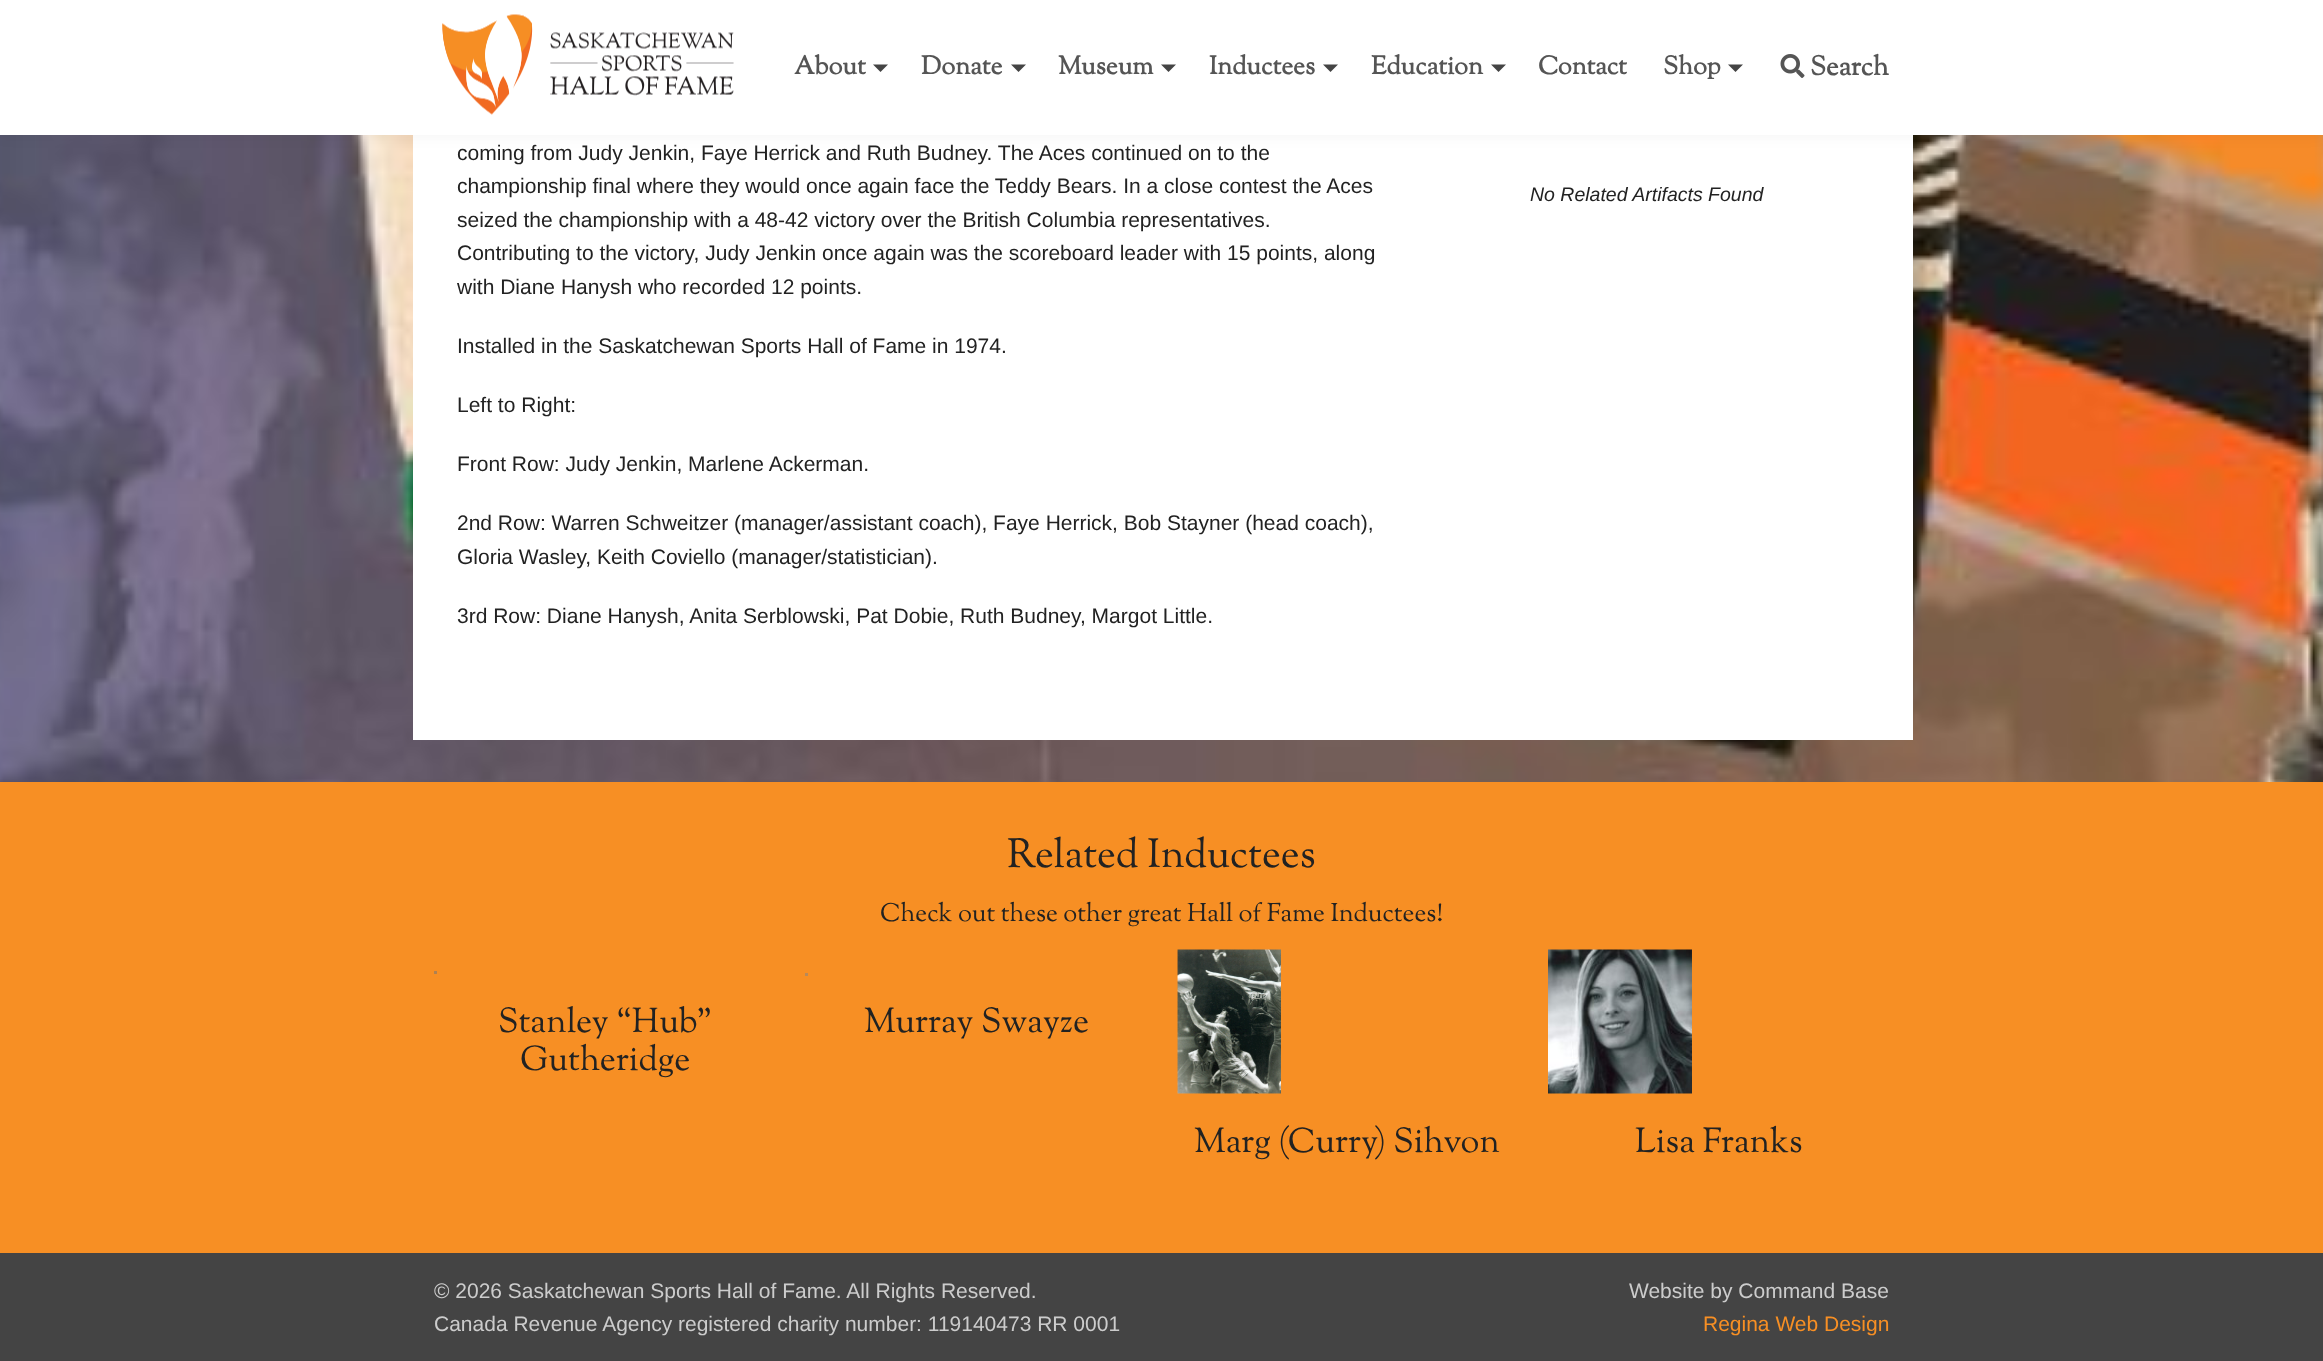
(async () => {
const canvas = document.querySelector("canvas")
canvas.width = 2323
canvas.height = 1361
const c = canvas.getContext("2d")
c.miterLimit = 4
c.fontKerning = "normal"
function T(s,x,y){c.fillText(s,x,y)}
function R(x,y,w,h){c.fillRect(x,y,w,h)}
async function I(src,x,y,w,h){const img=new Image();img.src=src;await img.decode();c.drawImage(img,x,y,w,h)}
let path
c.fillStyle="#fff"
R(0,0,2323,1361)
await I("1.png",0,135,2323,647)
R(413,135,1500,605)
c.fillStyle="#0000000d"
c.filter="blur(7.5px)"
c.beginPath()
c.rect(0,0,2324,135)
c.fill()
c.filter="none"
c.fillStyle="#fff"
R(0,0,2323,135)
await I("2.png",442,14,292,101)
c.font="bold 25.5px Sorts Mill Goudy"
c.fillStyle="#555"
T("About",794,74)
c.fillStyle="#444"
path = new Path2D("M873 64.5h15l-7.5 7.5z")
c.fill(path)
c.fillStyle="#555"
T("Donate",921,74)
c.fillStyle="#444"
path = new Path2D("M1011 64.5h15l-7.5 7.5z")
c.fill(path)
c.fillStyle="#555"
T("Museum",1058,74)
c.fillStyle="#444"
path = new Path2D("M1161 64.5h15l-7.5 7.5z")
c.fill(path)
c.fillStyle="#555"
T("Inductees",1209,74)
c.fillStyle="#444"
path = new Path2D("M1323 64.5h15l-7.5 7.5z")
c.fill(path)
c.fillStyle="#555"
T("Education",1371,74)
c.fillStyle="#444"
path = new Path2D("M1491 64.5h15l-7.5 7.5z")
c.fill(path)
c.fillStyle="#555"
T("Contact",1538,74)
T("Shop",1663,74)
c.fillStyle="#444"
path = new Path2D("M1728 64.5h15l-7.5 7.5z")
c.fill(path)
await I("3.png",1780,54,25,24)
c.font="bold 27px Sorts Mill Goudy"
c.fillStyle="#555"
T("Search",1810,75)
c.font="21px Liberation Sans"
c.fillStyle="#222"
T("coming from Judy Jenkin, Faye Herrick and Ruth Budney. The Aces continued on to the",457,160)
T("championship final where they would once again face the Teddy Bears. In a close contest the Aces",457,193)
T("seized the championship with a 48-42 victory over the British Columbia representatives.",457,227)
T("Contributing to the victory, Judy Jenkin once again was the scoreboard leader with 15 points, along",457,260)
T("with Diane Hanysh who recorded 12 points.",457,294)
T("Installed in the Saskatchewan Sports Hall of Fame in 1974.",457,353)
T("Left to Right:",457,412)
T("Front Row: Judy Jenkin, Marlene Ackerman.",457,471)
T("2nd Row: Warren Schweitzer (manager/assistant coach), Faye Herrick, Bob Stayner (head coach),",457,530)
T("Gloria Wasley, Keith Coviello (manager/statistician).",457,564)
T("3rd Row: Diane Hanysh, Anita Serblowski, Pat Dobie, Ruth Budney, Margot Little.",457,623)
c.font="italic 19.5px Liberation Sans"
T("No Related Artifacts Found",1530,201)
c.fillStyle="#f78f24"
R(0,782,2323,471)
c.font="40.5px Sorts Mill Goudy"
c.fillStyle="#222"
T("Related Inductees",1007,867)
c.font="25.5px Sorts Mill Goudy"
T("Check out these other great Hall of Fame Inductees!",880,921)
c.fillStyle="#af8151"
R(434,971,3,3)
c.font="34.5px Sorts Mill Goudy"
c.fillStyle="#222"
T("Stanley “Hub”",498,1032)
T("Gutheridge",520,1070)
c.fillStyle="#b7895a"
R(805,973,3,3)
c.fillStyle="#222"
T("Murray Swayze",864,1032)
await I("4.png",1177,949,104,145)
T("Marg (Curry) Sihvon",1194,1152)
await I("5.png",1548,949,144,145)
T("Lisa Franks",1635,1152)
c.fillStyle="#444"
R(0,1253,2323,108)
c.font="21px Liberation Sans"
c.fillStyle="#ccc"
T("© 2026 Saskatchewan Sports Hall of Fame. All Rights Reserved.",434,1298)
T("Canada Revenue Agency registered charity number: 119140473 RR 0001",434,1331)
T("Website by Command Base",1629,1298)
c.fillStyle="#f78f24"
T("Regina Web Design",1703,1331)
})()
